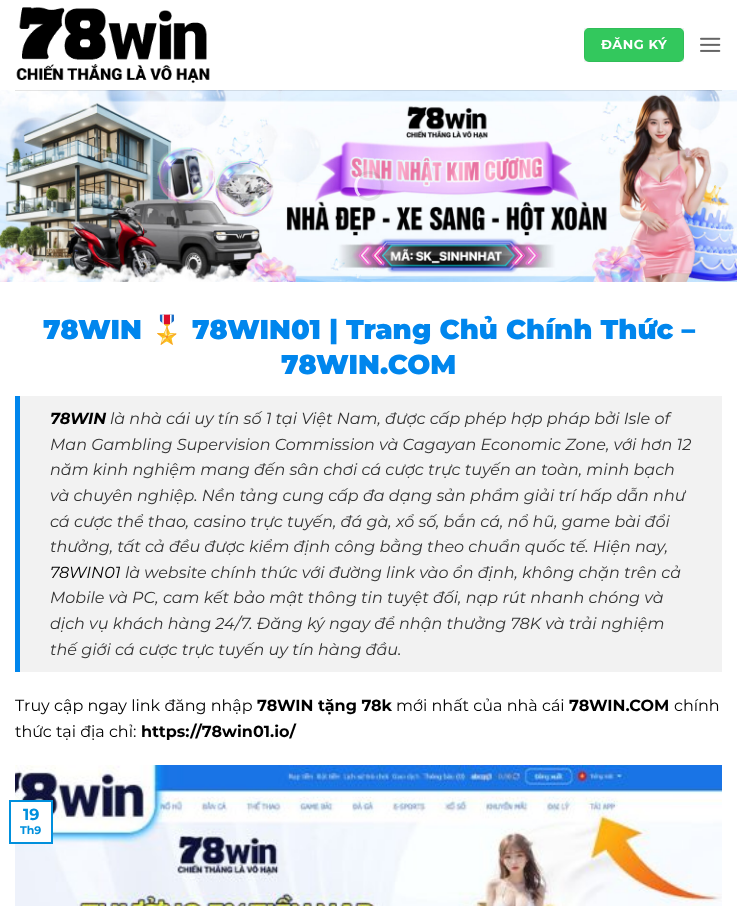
(async () => {
const canvas = document.querySelector("canvas")
canvas.width = 737
canvas.height = 906
const c = canvas.getContext("2d")
c.miterLimit = 4
c.fontKerning = "normal"
function T(s,x,y){c.fillText(s,x,y)}
function R(x,y,w,h){c.fillRect(x,y,w,h)}
function Q(x,y,w,h,r){c.beginPath();c.roundRect(x,y,w,h,r);c.fill()}
async function I(src,x,y,w,h){const img=new Image();img.src=src;await img.decode();c.drawImage(img,x,y,w,h)}
let path
c.fillStyle="#fff"
R(0,0,737,906)
await I("1.png",16,7,194,77)
c.fillStyle="#33c85d"
Q(584,28,100,34,5)
c.strokeStyle="#0000000d"
c.strokeRect(584.5,28.5,99,33)
c.letterSpacing="0.5px"
c.font="bold 13px Montserrat"
c.fillStyle="#fff"
T("ĐĂNG KÝ",601,49)
await I("2.png",700,37,21,15)
await I("3.png",0,90,737,192)
c.fillStyle="#0000001a"
R(15,90,707,1)
path = new Path2D("M359.5 176.5c2.5-2.5 6-4 9.5-4c16 0 18.5 23.5 2.5 26.5c-4 1-9-.5-12-3.5")
c.strokeStyle="#00000014"
c.lineWidth=3
c.stroke(path)
path = new Path2D("M359.5 195.5c-5-5-5-14 0-19")
c.strokeStyle="#ffffffcc"
c.stroke(path)
c.letterSpacing="0px"
c.font="900 27.25px Montserrat"
c.fillStyle="#0086ed"
T("78WIN",43,339)
c.font="bold 27.25px Noto Color Emoji"
T("🎖️",150,339)
c.font="900 27.25px Montserrat"
T("78WIN01 | Trang Chủ Chính Thức –",192,339)
T("78WIN.COM",281,374)
c.fillStyle="#f2f2f2"
R(20,396,702,276)
c.fillStyle="#0086ed"
R(15,396,5,276)
c.font="italic bold 16px Montserrat"
c.fillStyle="#000"
T("78WIN",50,424)
c.font="italic 16px Montserrat"
c.fillStyle="#333"
T("là nhà cái uy tín số 1 tại Việt Nam, được cấp phép hợp pháp bởi Isle of",110,424)
T("Man Gambling Supervision Commission và Cagayan Economic Zone, với hơn 12",50,450)
T("năm kinh nghiệm mang đến sân chơi cá cược trực tuyến an toàn, minh bạch",50,475)
T("và chuyên nghiệp. Nền tảng cung cấp đa dạng sản phẩm giải trí hấp dẫn như",50,501)
T("cá cược thể thao, casino trực tuyến, đá gà, xổ số, bắn cá, nổ hũ, game bài đổi",50,527)
T("thưởng, tất cả đều được kiểm định công bằng theo chuẩn quốc tế. Hiện nay,",50,552)
c.fillStyle="#000"
T("78WIN01",50,578)
c.fillStyle="#333"
T("là website chính thức với đường link vào ổn định, không chặn trên cả",125,578)
T("Mobile và PC, cam kết bảo mật thông tin tuyệt đối, nạp rút nhanh chóng và",50,603)
T("dịch vụ khách hàng 24/7. Đăng ký ngay để nhận thưởng 78K và trải nghiệm",50,629)
T("thế giới cá cược trực tuyến uy tín hàng đầu.",50,655)
c.font="16px Montserrat"
c.fillStyle="#000"
T("Truy cập ngay link đăng nhập",15,711)
c.font="bold 16px Montserrat"
T("78WIN tặng 78k",257,711)
c.font="16px Montserrat"
T("mới nhất của nhà cái",396,711)
c.font="bold 16px Montserrat"
T("78WIN.COM",569,711)
c.font="16px Montserrat"
T("chính",674,711)
T("thức tại địa chỉ:",15,737)
c.font="bold 16px Montserrat"
T("https://78win01.io/",141,737)
await I("4.png",15,765,707,141)
c.fillStyle="#fff"
R(15,802,36,40)
c.strokeStyle="#0090dd"
c.lineWidth=2
c.strokeRect(10,801,42,42)
c.fillStyle="#0090dd"
T("19",23,820)
c.font="bold 11px Montserrat"
T("Th9",20,834)
})()
